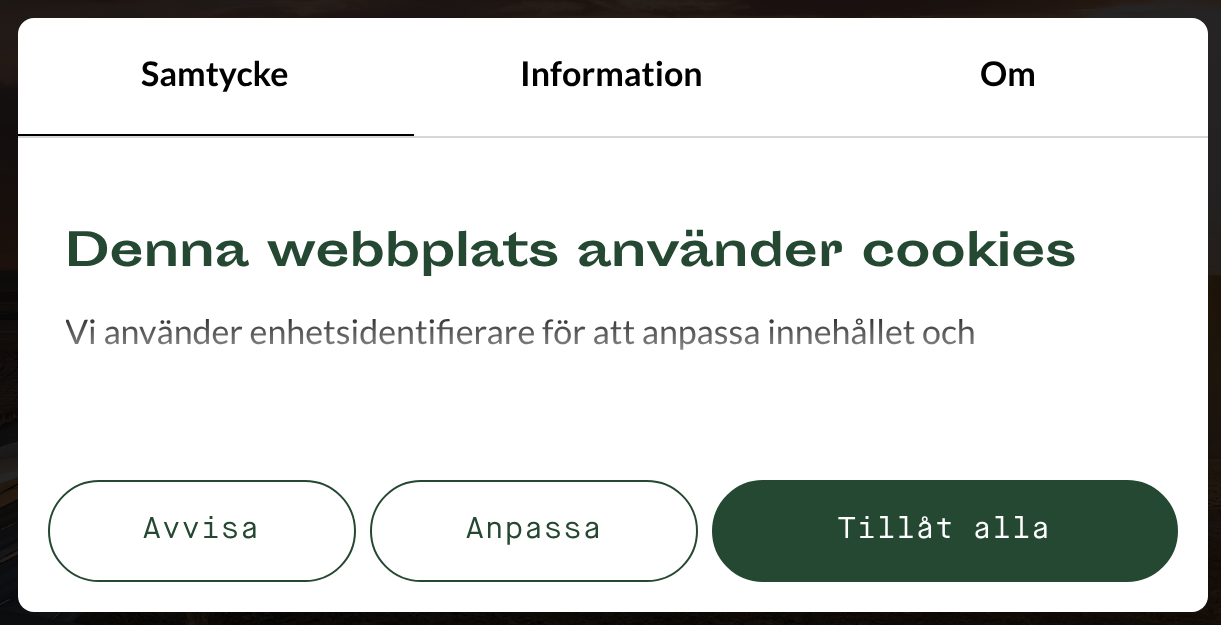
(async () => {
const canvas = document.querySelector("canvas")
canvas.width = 1221
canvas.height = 625
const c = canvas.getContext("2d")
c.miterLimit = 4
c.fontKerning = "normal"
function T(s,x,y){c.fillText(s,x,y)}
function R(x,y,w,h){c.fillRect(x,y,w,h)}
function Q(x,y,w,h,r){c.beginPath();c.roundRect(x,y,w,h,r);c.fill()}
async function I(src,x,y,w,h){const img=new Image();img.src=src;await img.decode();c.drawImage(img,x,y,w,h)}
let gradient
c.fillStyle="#fff"
R(0,0,1221,625)
await I("1.png",0,0,1221,625)
Q(18,18,1190,594,16)
c.fillStyle="#d6d6d6"
R(18,136,1190,2)
c.fillStyle="#000"
R(18,134,396,2)
c.font="bold 34px Lato"
T("Samtycke",141,86)
T("Information",520,86)
T("Om",980,86)
c.letterSpacing="-0.9px"
c.font="bold 44.8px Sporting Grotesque"
c.fillStyle="#244831"
T("Denna webbplats använder cookies",65,266)
c.save()
c.beginPath()
c.rect(66,168,1092,252)
c.clip()
c.letterSpacing="0px"
c.font="34px Lato"
c.fillStyle="#000"
T("Vi använder enhetsidentifierare för att anpassa innehållet och",65,344)
c.restore()
gradient = c.createLinearGradient(598,449,598,299)
gradient.addColorStop(0,"#fff")
gradient.addColorStop(.5,"#ffffffcc")
gradient.addColorStop(1,"#ffffff00")
c.fillStyle = gradient
R(66,318,908,32)
c.beginPath()
c.roundRect(49,481,306,100,50)
c.strokeStyle="#244831"
c.lineWidth=2
c.stroke()
c.letterSpacing="0px"
c.font="30px Maison Neue"
c.fillStyle="#244831"
T("Avvisa",142,538)
c.beginPath()
c.roundRect(371,481,326,100,50)
c.stroke()
T("Anpassa",465,538)
c.beginPath()
c.roundRect(713,481,464,100,50)
c.fill()
c.stroke()
c.fillStyle="#fff"
T("Tillåt alla",837,538)
})()
